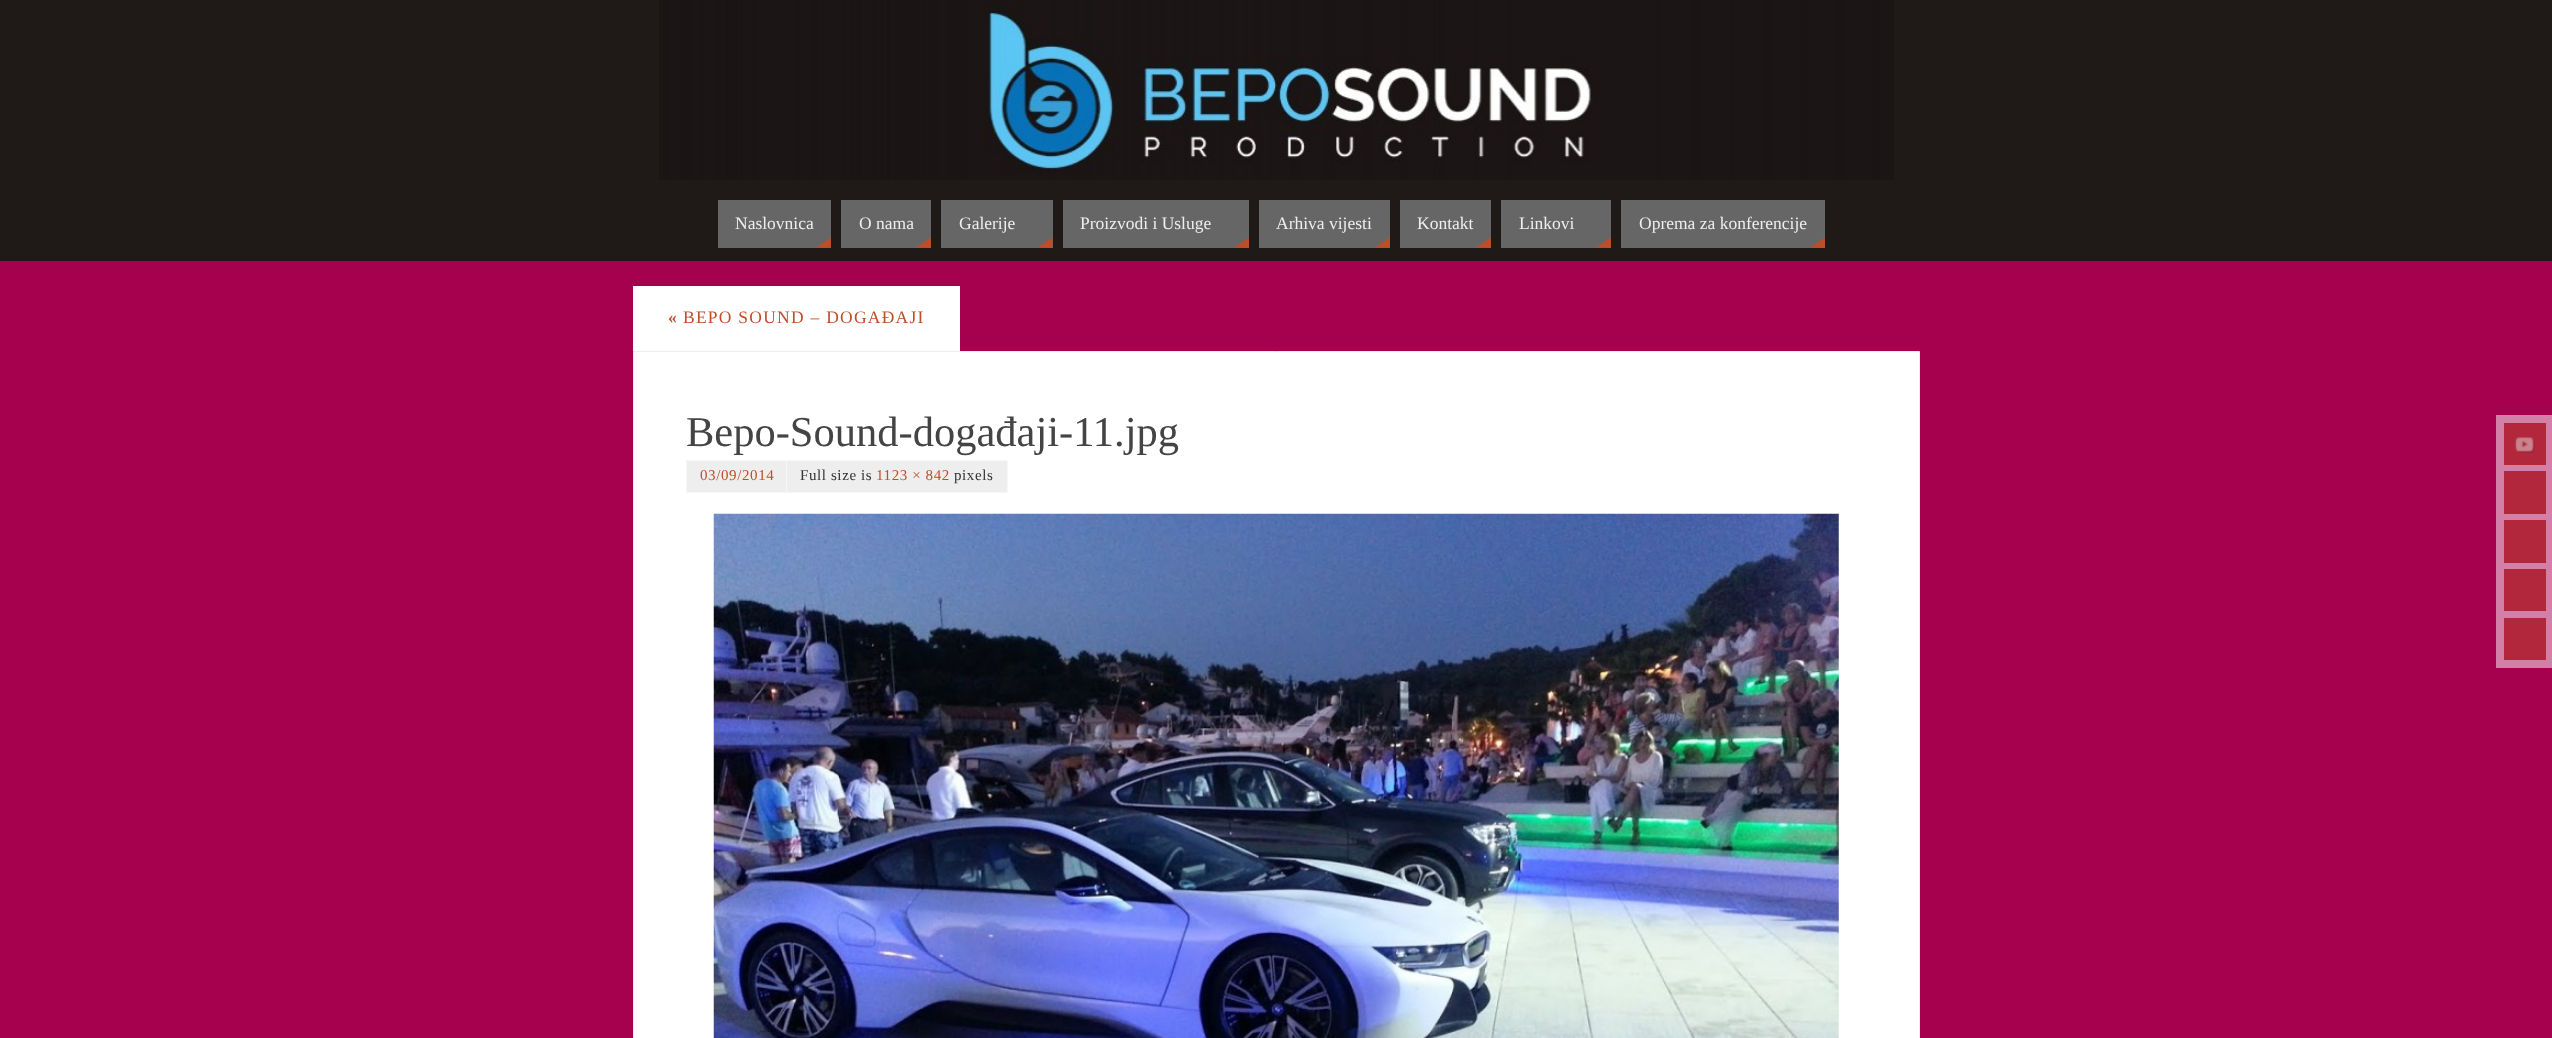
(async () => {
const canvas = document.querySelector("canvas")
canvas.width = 2552
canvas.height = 1038
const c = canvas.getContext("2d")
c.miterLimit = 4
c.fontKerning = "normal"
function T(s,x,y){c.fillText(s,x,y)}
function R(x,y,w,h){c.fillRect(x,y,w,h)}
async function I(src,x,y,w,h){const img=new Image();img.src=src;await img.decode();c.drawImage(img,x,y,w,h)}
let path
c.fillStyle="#a5014e"
R(0,0,2552,1038)
c.fillStyle="#1f1a17"
R(0,0,2552,261)
await I("1.png",659,0,1235,180)
c.fillStyle="#666"
R(718,200,113,48)
c.font="17.5px Liberation Serif"
c.fillStyle="#eee"
T("Naslovnica",735,229)
c.fillStyle="#bf4d28"
path = new Path2D("M831 247.5h-15l15-10z")
c.fill(path)
c.fillStyle="#666"
R(841,200,90,48)
c.fillStyle="#eee"
T("O nama",859,229)
c.fillStyle="#bf4d28"
path = new Path2D("M931 247.5h-15l15-10z")
c.fill(path)
c.fillStyle="#666"
R(941,200,112,48)
c.fillStyle="#eee"
T("Galerije",959,229)
c.fillStyle="#bf4d28"
path = new Path2D("M1052.5 247.5h-15l15-10z")
c.fill(path)
c.fillStyle="#666"
R(1063,200,186,48)
c.fillStyle="#eee"
T("Proizvodi i Usluge",1080,229)
c.fillStyle="#bf4d28"
path = new Path2D("M1249 247.5h-15l15-10z")
c.fill(path)
c.fillStyle="#666"
R(1259,200,131,48)
c.fillStyle="#eee"
T("Arhiva vijesti",1276,229)
c.fillStyle="#bf4d28"
path = new Path2D("M1390 247.5h-15l15-10z")
c.fill(path)
c.fillStyle="#666"
R(1400,200,91,48)
c.fillStyle="#eee"
T("Kontakt",1417,229)
c.fillStyle="#bf4d28"
path = new Path2D("M1491 247.5h-15l15-10z")
c.fill(path)
c.fillStyle="#666"
R(1501,200,110,48)
c.fillStyle="#eee"
T("Linkovi",1519,229)
c.fillStyle="#bf4d28"
path = new Path2D("M1611 247.5h-15l15-10z")
c.fill(path)
c.fillStyle="#666"
R(1621,200,204,48)
c.fillStyle="#eee"
T("Oprema za konferencije",1639,229)
c.fillStyle="#bf4d28"
path = new Path2D("M1825 247.5h-15l15-10z")
c.fill(path)
c.fillStyle="#fff"
R(633,286,327,65)
c.letterSpacing="1.25px"
c.font="bold 17.5px Liberation Serif"
c.fillStyle="#bf4d28"
T("«",668,323)
c.font="17.5px Liberation Serif"
T("BEPO SOUND – DOGAĐAJI",683,323)
c.fillStyle="#fff"
c.beginPath()
c.rect(633.5,351.5,1286,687)
c.fill()
c.strokeStyle="#eee"
c.stroke()
c.letterSpacing="0px"
c.font="42.5px Liberation Serif"
c.fillStyle="#444"
T("Bepo-Sound-događaji-11.jpg",686,446)
c.fillStyle="#eee"
R(687,461,99,31)
c.strokeStyle="#f7f7f7"
c.strokeRect(686.5,460.5,101,32)
c.letterSpacing="0.6px"
c.font="15px Liberation Serif"
c.fillStyle="#bf4d28"
T("03/09/2014",700,480)
c.fillStyle="#eee"
c.beginPath()
c.rect(786.5,460.5,221,32)
c.fill()
c.stroke()
c.fillStyle="#333"
T("Full size is",800,480)
c.fillStyle="#bf4d28"
T("1123 × 842",876,480)
c.fillStyle="#333"
T("pixels",954,480)
await I("2.png",713,513,1126,525)
c.fillStyle="#d280a7"
R(2496,415,56,253)
c.fillStyle="#b2273b"
R(2504,423,42,42)
await I("3.png",2515,437,20,16)
R(2504,471,42,43)
R(2504,520,42,43)
R(2504,569,42,42)
R(2504,618,42,42)
})()
